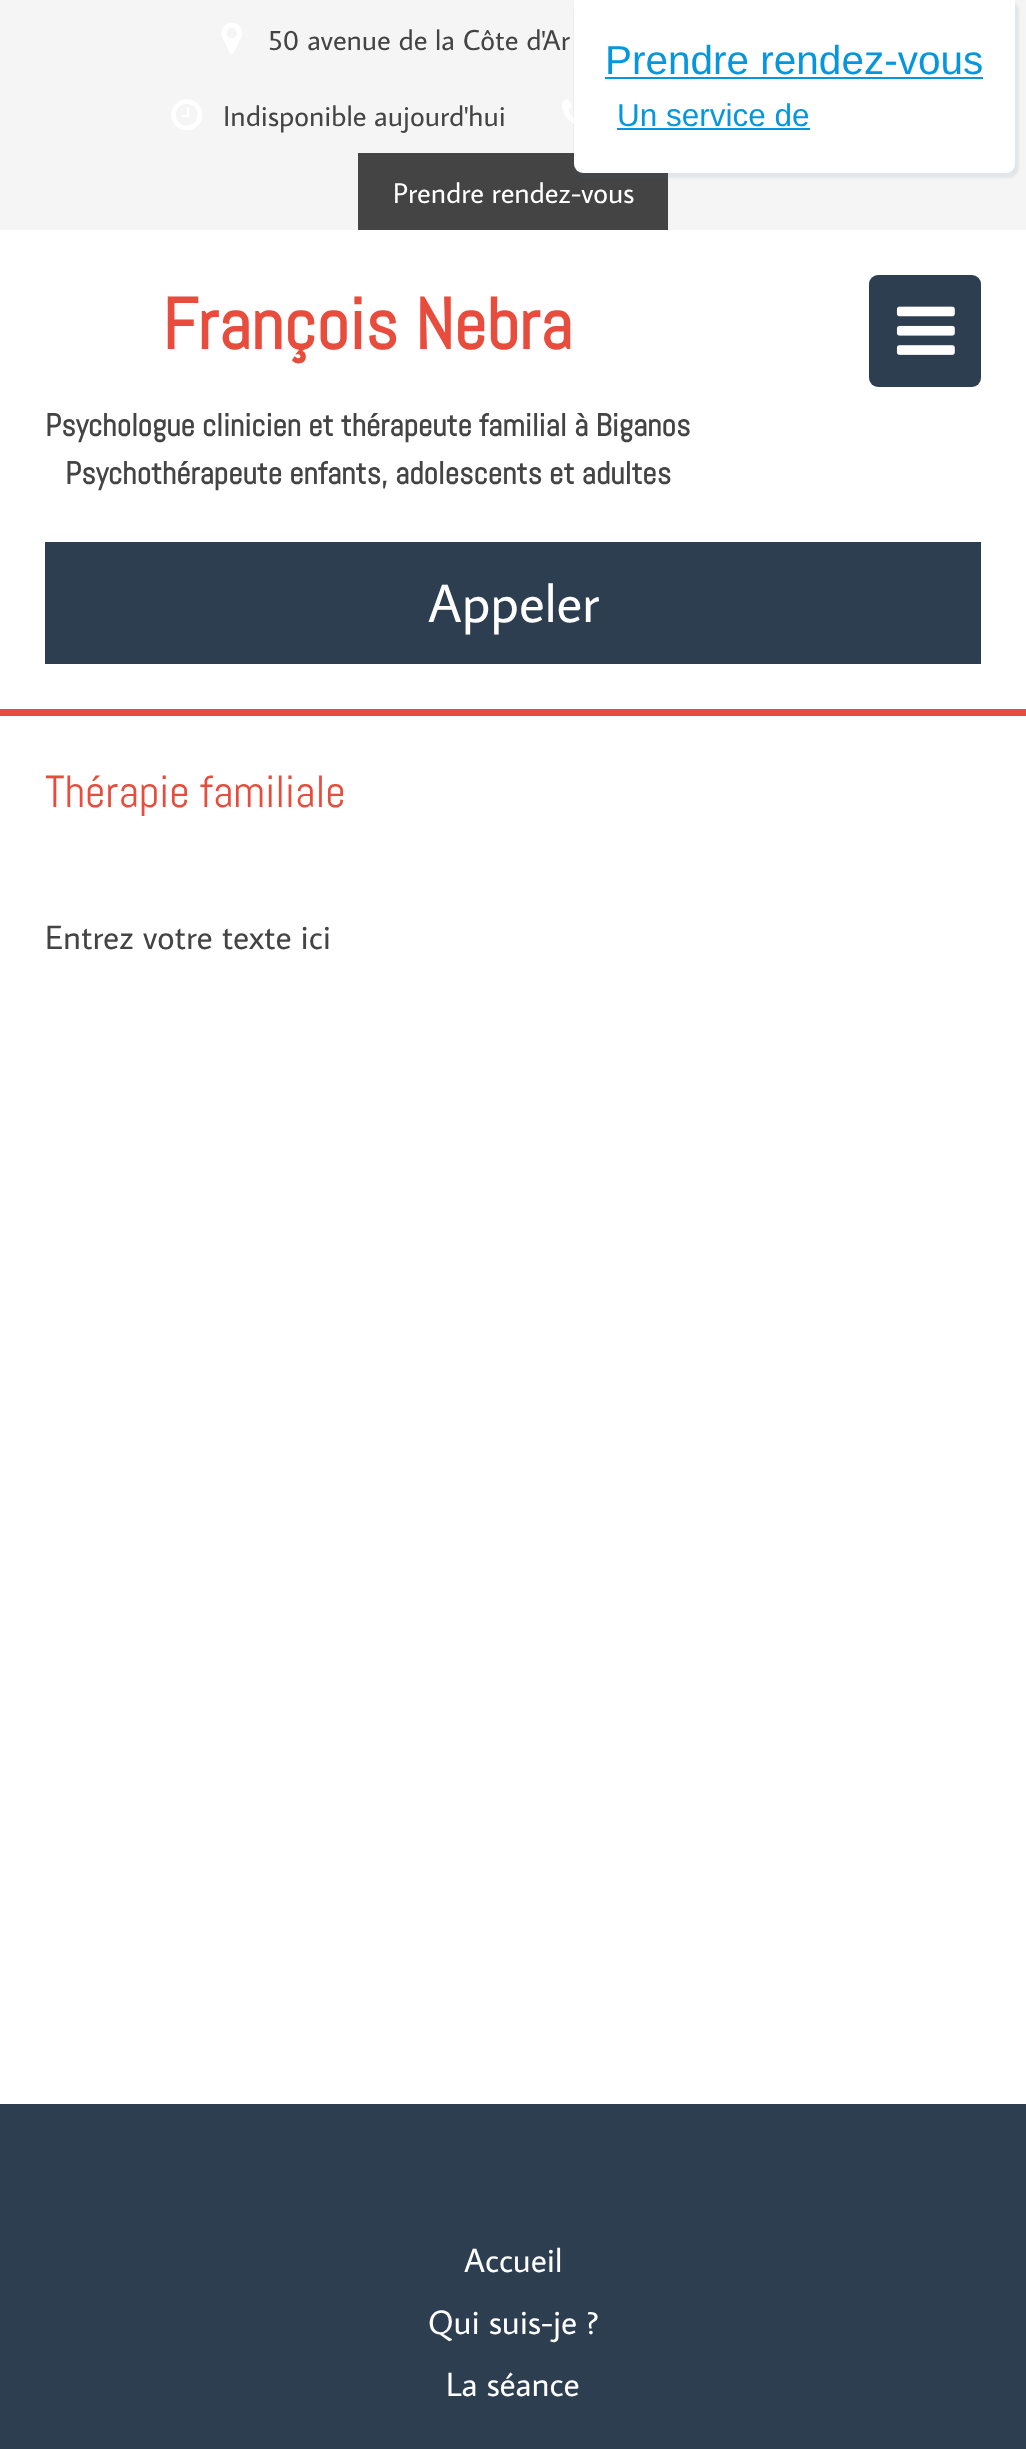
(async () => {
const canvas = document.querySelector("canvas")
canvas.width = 1026
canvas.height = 2449
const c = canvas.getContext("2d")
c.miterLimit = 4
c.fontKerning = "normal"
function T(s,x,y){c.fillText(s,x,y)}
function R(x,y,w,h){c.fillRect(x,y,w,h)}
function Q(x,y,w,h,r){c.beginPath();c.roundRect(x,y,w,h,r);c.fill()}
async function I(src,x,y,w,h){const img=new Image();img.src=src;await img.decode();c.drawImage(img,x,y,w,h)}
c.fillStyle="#fff"
R(0,0,1026,2449)
c.fillStyle="#f5f5f5"
R(0,0,1026,230)
await I("1.png",221,23,21,31)
c.font="28.75px Average Sans"
c.fillStyle="#444"
T("50 avenue de la Côte d'Ar",268,50)
await I("2.png",171,99,31,31)
T("Indisponible aujourd'hui",223,126)
await I("3.png",562,99,12,25)
R(358,153,310,77)
c.fillStyle="#fff"
T("Prendre rendez-vous",393,203)
c.fillStyle="#e74c3c"
R(0,709,1026,7)
c.font="bold 72px Abel"
T("François Nebra",162,349)
c.font="bold 31.5px Abel"
c.fillStyle="#444"
T("Psychologue clinicien et thérapeute familial à Biganos",45,436)
T("Psychothérapeute enfants, adolescents et adultes",65,484)
c.fillStyle="#2c3e50"
Q(869,275,112,112,9)
await I("4.png",896,306,59,49)
R(45,542,936,122)
c.font="54px Average Sans"
c.fillStyle="#fff"
T("Appeler",428,622)
c.font="45px Abel"
c.fillStyle="#e74c3c"
T("Thérapie familiale",45,807)
c.font="33.75px Average Sans"
c.fillStyle="#444"
T("Entrez votre texte ici",45,949)
c.fillStyle="#2c3e50"
R(0,2104,1026,345)
c.fillStyle="#fff"
T("Accueil",464,2272)
T("Qui suis-je ?",428,2334)
T("La séance",446,2396)
c.fillStyle="#435f711a"
c.filter="blur(1px)"
c.beginPath()
c.roundRect(574,0,445,178,11)
c.fill()
c.filter="none"
c.fillStyle="#fff"
c.beginPath()
c.roundRect(574,0,441,173,[0,0,9,9])
c.fill()
c.font="40.5px Liberation Sans"
c.fillStyle="#0596de"
T("Prendre rendez-vous",605,74)
R(605,77,378,2)
c.font="31.5px Liberation Sans"
T("Un service de",617,126)
R(617,128,193,2)
})()
